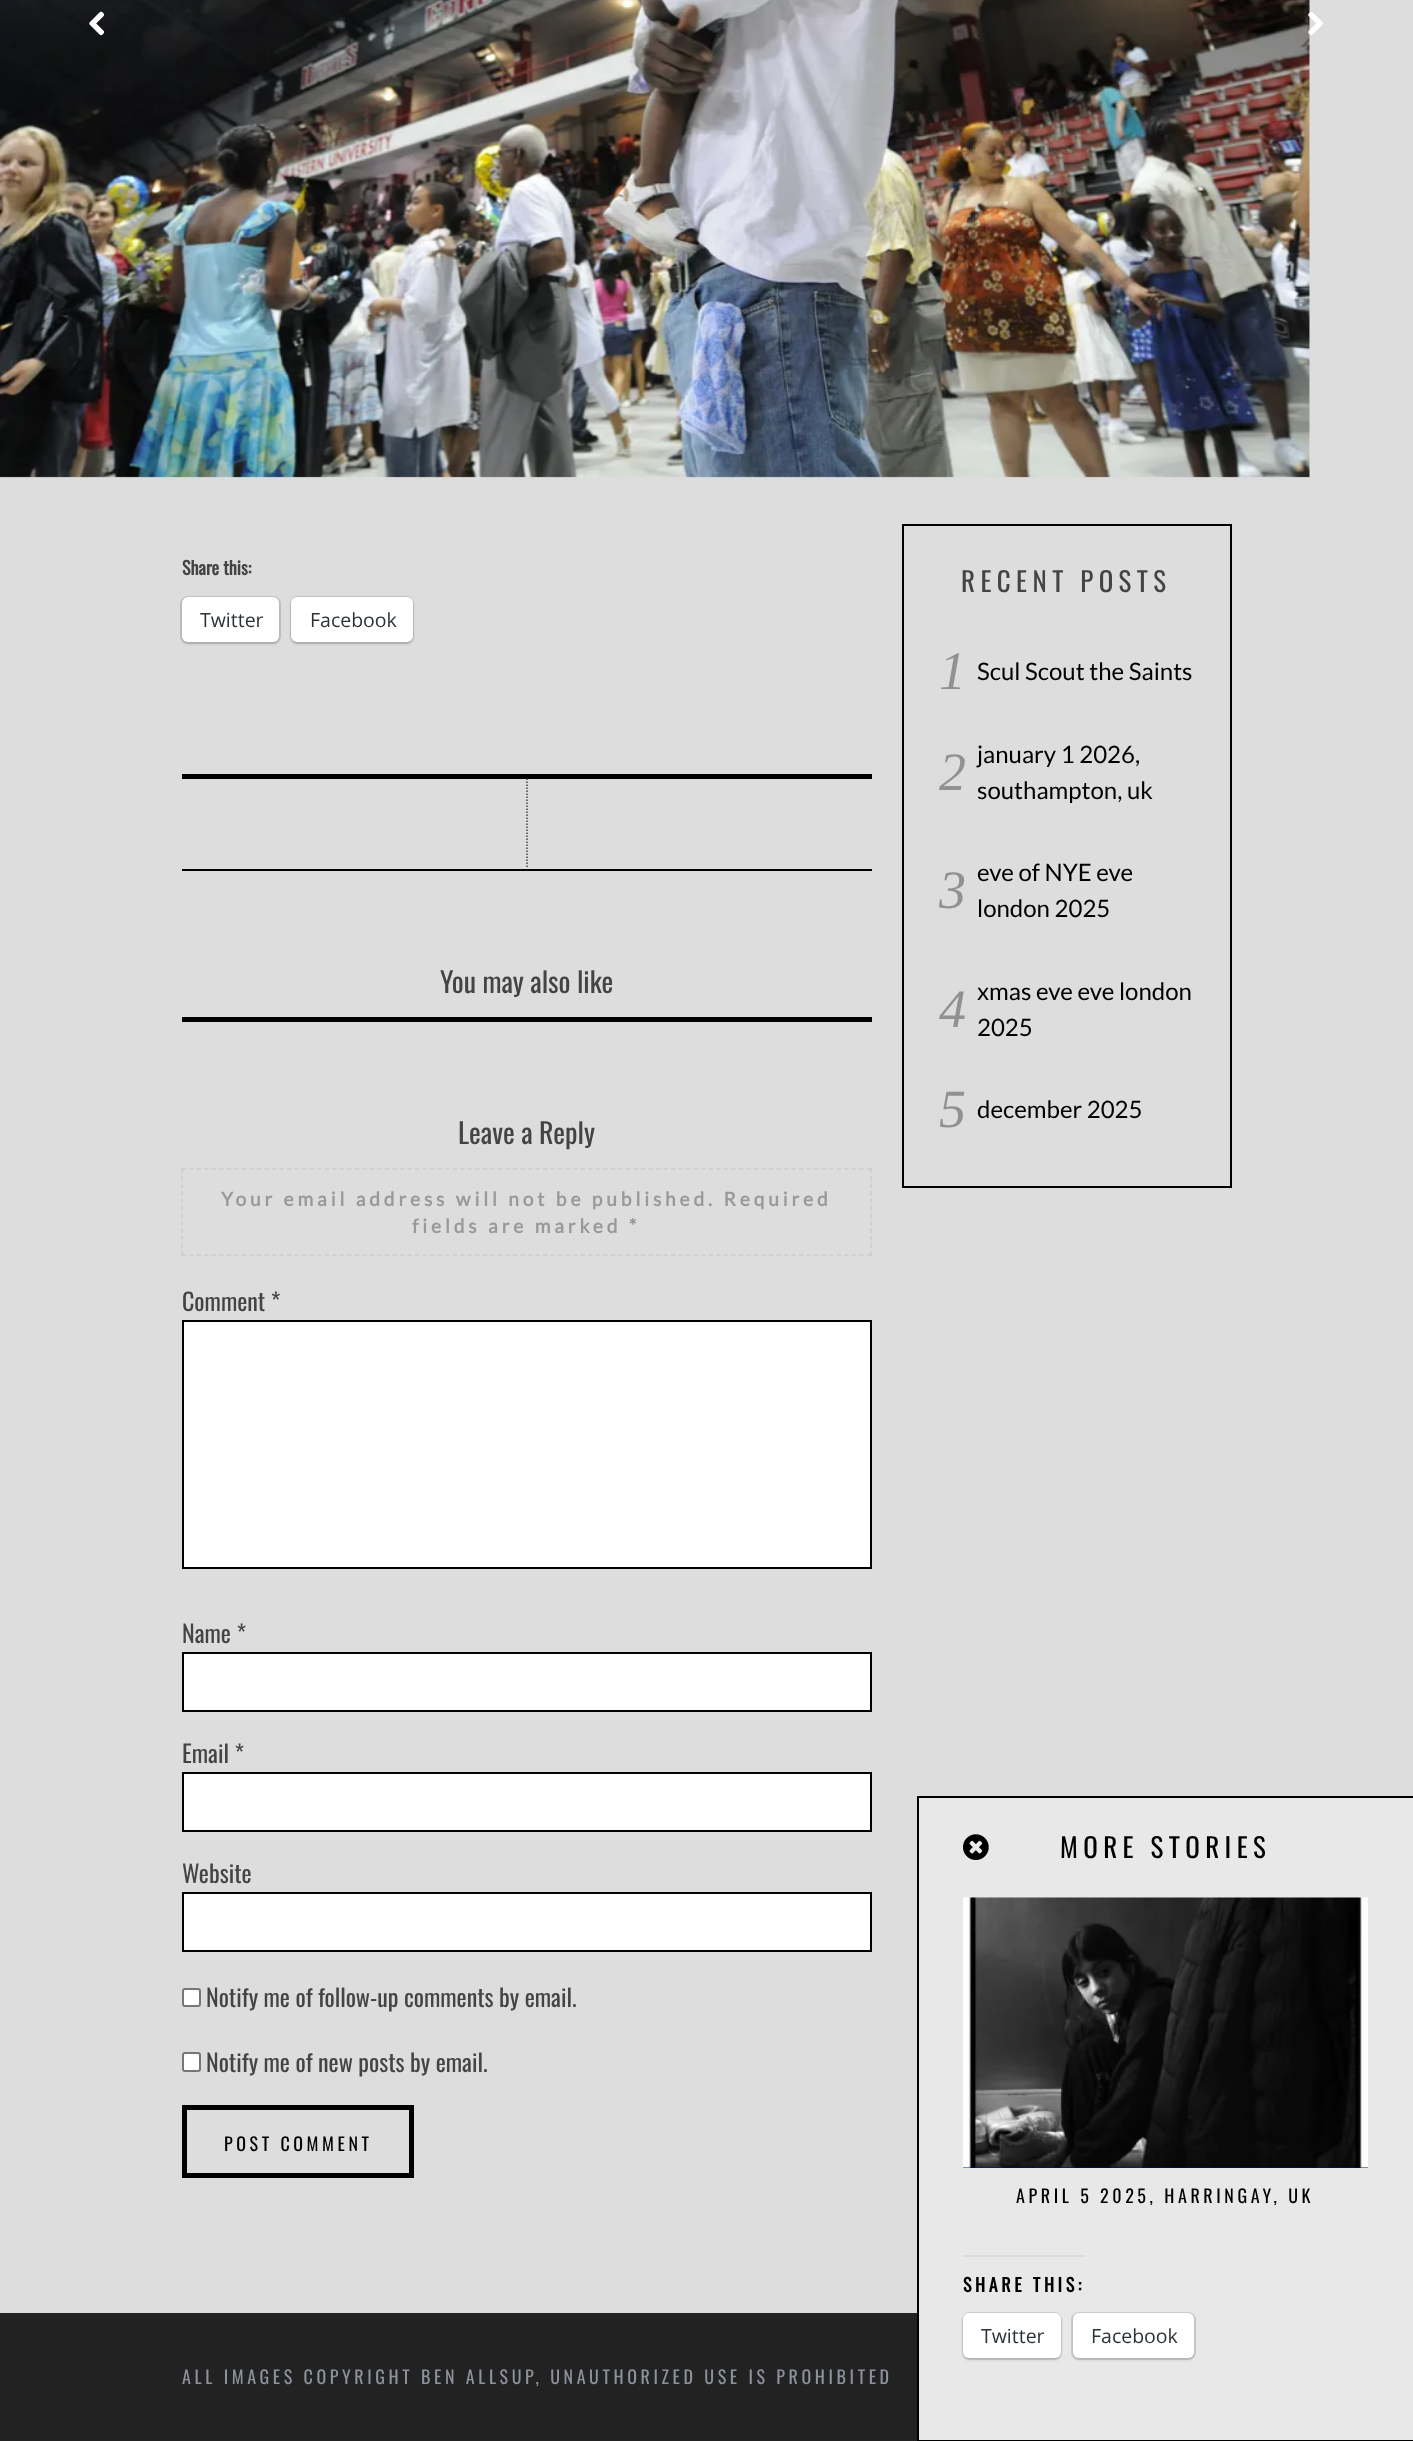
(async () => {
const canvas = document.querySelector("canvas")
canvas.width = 1413
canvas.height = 2441
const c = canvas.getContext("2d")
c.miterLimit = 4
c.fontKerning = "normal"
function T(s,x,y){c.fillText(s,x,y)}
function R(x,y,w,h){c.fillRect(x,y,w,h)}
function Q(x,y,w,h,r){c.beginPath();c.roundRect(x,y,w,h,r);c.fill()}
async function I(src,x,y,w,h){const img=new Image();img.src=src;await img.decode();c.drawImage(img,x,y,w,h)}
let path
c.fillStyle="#ddd"
R(0,0,1413,2441)
await I("1.png",0,0,1310,478)
await I("2.png",89,11,16,25)
await I("3.png",1308,11,15,25)
c.font="bold 18px Oswald"
c.fillStyle="#444"
T("Share this:",182,575)
c.beginPath()
c.roundRect(181,597,99,46,7)
c.strokeStyle="#c2c2c2"
c.lineWidth=2
c.stroke()
c.fillStyle="#0000001f"
c.filter="blur(1.5px)"
c.beginPath()
c.roundRect(182,599,97,45,6)
c.fill()
c.filter="none"
c.fillStyle="#fff"
Q(182,597,97,45,6)
c.font="19.5px Open Sans"
c.fillStyle="#2c3338"
T("Twitter",200,627)
c.beginPath()
c.roundRect(291,597,122,46,7)
c.stroke()
c.fillStyle="#0000001f"
c.filter="blur(1.5px)"
c.beginPath()
c.roundRect(291,599,122,45,6)
c.fill()
c.filter="none"
c.fillStyle="#fff"
Q(291,597,122,45,6)
c.fillStyle="#2c3338"
T("Facebook",310,627)
c.fillStyle="#000"
R(182,774,690,5)
R(182,869,690,2)
path = new Path2D("M527 778.5v90")
c.strokeStyle="#444"
c.lineWidth=1.5
c.setLineDash([1.5,1.5])
c.stroke(path)
R(182,1017,690,5)
c.font="28px Oswald"
c.fillStyle="#444"
T("You may also like",440,993)
T("Leave a Reply",458,1144)
path = new Path2D("M181.5 1169h690")
c.strokeStyle="#ccc"
c.setLineDash([4.5,3.03])
c.stroke(path)
path = new Path2D("M871 1168.5v87")
c.setLineDash([4.5,3])
c.stroke(path)
path = new Path2D("M181.5 1255h690")
c.setLineDash([4.5,3.03])
c.stroke(path)
path = new Path2D("M182 1168.5v87")
c.setLineDash([4.5,3])
c.stroke(path)
c.letterSpacing="3.85px"
c.font="bold 19.2px Lato"
c.fillStyle="#999"
T("Your email address will not be published. Required",221,1206)
T("fields are marked *",412,1233)
c.letterSpacing="0px"
c.font="24px Oswald"
c.fillStyle="#444"
T("Comment *",182,1311)
c.fillStyle="#fff"
c.beginPath()
c.rect(183,1321,688,247)
c.fill()
c.strokeStyle="#000"
c.lineWidth=2
c.setLineDash([])
c.stroke()
c.fillStyle="#444"
T("Name *",182,1643)
c.fillStyle="#fff"
c.beginPath()
c.rect(183,1653,688,58)
c.fill()
c.stroke()
c.fillStyle="#444"
T("Email *",182,1763)
c.fillStyle="#fff"
c.beginPath()
c.rect(183,1773,688,58)
c.fill()
c.stroke()
c.fillStyle="#444"
T("Website",182,1883)
c.fillStyle="#fff"
c.beginPath()
c.rect(183,1893,688,58)
c.fill()
c.stroke()
c.beginPath()
c.roundRect(183,1989,17,17,2)
c.fill()
c.strokeStyle="#767676"
c.stroke()
c.fillStyle="#444"
T("Notify me of follow-up comments by email.",206,2007)
c.fillStyle="#fff"
c.beginPath()
c.roundRect(183,2053,17,18,2)
c.fill()
c.stroke()
c.fillStyle="#444"
T("Notify me of new posts by email.",206,2072)
c.strokeStyle="#000"
c.lineWidth=5
c.strokeRect(184.5,2107.5,227,68)
c.letterSpacing="3.6px"
c.font="18px Oswald"
c.fillStyle="#000"
T("POST COMMENT",224,2151)
c.lineWidth=2
c.strokeRect(903,525,328,662)
c.letterSpacing="5.4px"
c.font="27px Oswald"
c.fillStyle="#444"
T("RECENT POSTS",961,592)
c.letterSpacing="0px"
c.font="italic 54px Liberation Serif"
c.fillStyle="#919191"
T("1",939,689)
c.font="24px Lato"
c.fillStyle="#000"
T("Scul Scout the Saints",977,680)
c.font="italic 54px Liberation Serif"
c.fillStyle="#919191"
T("2",939,790)
c.font="24px Lato"
c.fillStyle="#000"
T("january 1 2026,",977,763)
T("southampton, uk",977,799)
c.font="italic 54px Liberation Serif"
c.fillStyle="#919191"
T("3",939,908)
c.font="24px Lato"
c.fillStyle="#000"
T("eve of NYE eve",977,881)
T("london 2025",977,917)
c.font="italic 54px Liberation Serif"
c.fillStyle="#919191"
T("4",939,1027)
c.font="24px Lato"
c.fillStyle="#000"
T("xmas eve eve london",977,1000)
T("2025",977,1036)
c.font="italic 54px Liberation Serif"
c.fillStyle="#919191"
T("5",939,1127)
c.font="24px Lato"
c.fillStyle="#000"
T("december 2025",977,1118)
c.fillStyle="#e8e8e8"
c.beginPath()
c.rect(918,1797,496,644)
c.fill()
c.stroke()
await I("4.png",963,1834,26,26)
c.letterSpacing="5.4px"
c.font="27px Oswald"
c.fillStyle="#000"
T("MORE STORIES",1060,1858)
c.fillStyle="#011277"
R(963,2167,405,1)
await I("5.png",963,1897,405,271)
c.letterSpacing="3.6px"
c.font="18px Oswald"
c.fillStyle="#000"
T("APRIL 5 2025, HARRINGAY, UK",1016,2203)
c.fillStyle="#dcdcde"
R(963,2255,122,2)
c.font="bold 18px Oswald"
c.fillStyle="#000"
T("SHARE THIS:",963,2292)
c.beginPath()
c.roundRect(963,2313,98,46,7)
c.strokeStyle="#ccc"
c.stroke()
c.fillStyle="#0000001f"
c.filter="blur(1.5px)"
c.beginPath()
c.roundRect(963,2315,98,45,6)
c.fill()
c.filter="none"
c.fillStyle="#fff"
Q(963,2313,98,45,6)
c.letterSpacing="0px"
c.font="19.5px Open Sans"
c.fillStyle="#2c3338"
T("Twitter",981,2343)
c.beginPath()
c.roundRect(1072,2313,123,46,7)
c.stroke()
c.fillStyle="#0000001f"
c.filter="blur(1.5px)"
c.beginPath()
c.roundRect(1073,2315,121,45,6)
c.fill()
c.filter="none"
c.fillStyle="#fff"
Q(1073,2313,121,45,6)
c.fillStyle="#2c3338"
T("Facebook",1091,2343)
c.fillStyle="#222"
R(0,2313,917,128)
c.letterSpacing="3.6px"
c.font="18px Oswald"
c.fillStyle="#8c919b"
T("ALL IMAGES COPYRIGHT BEN ALLSUP, UNAUTHORIZED USE IS PROHIBITED",182,2384)
})()
